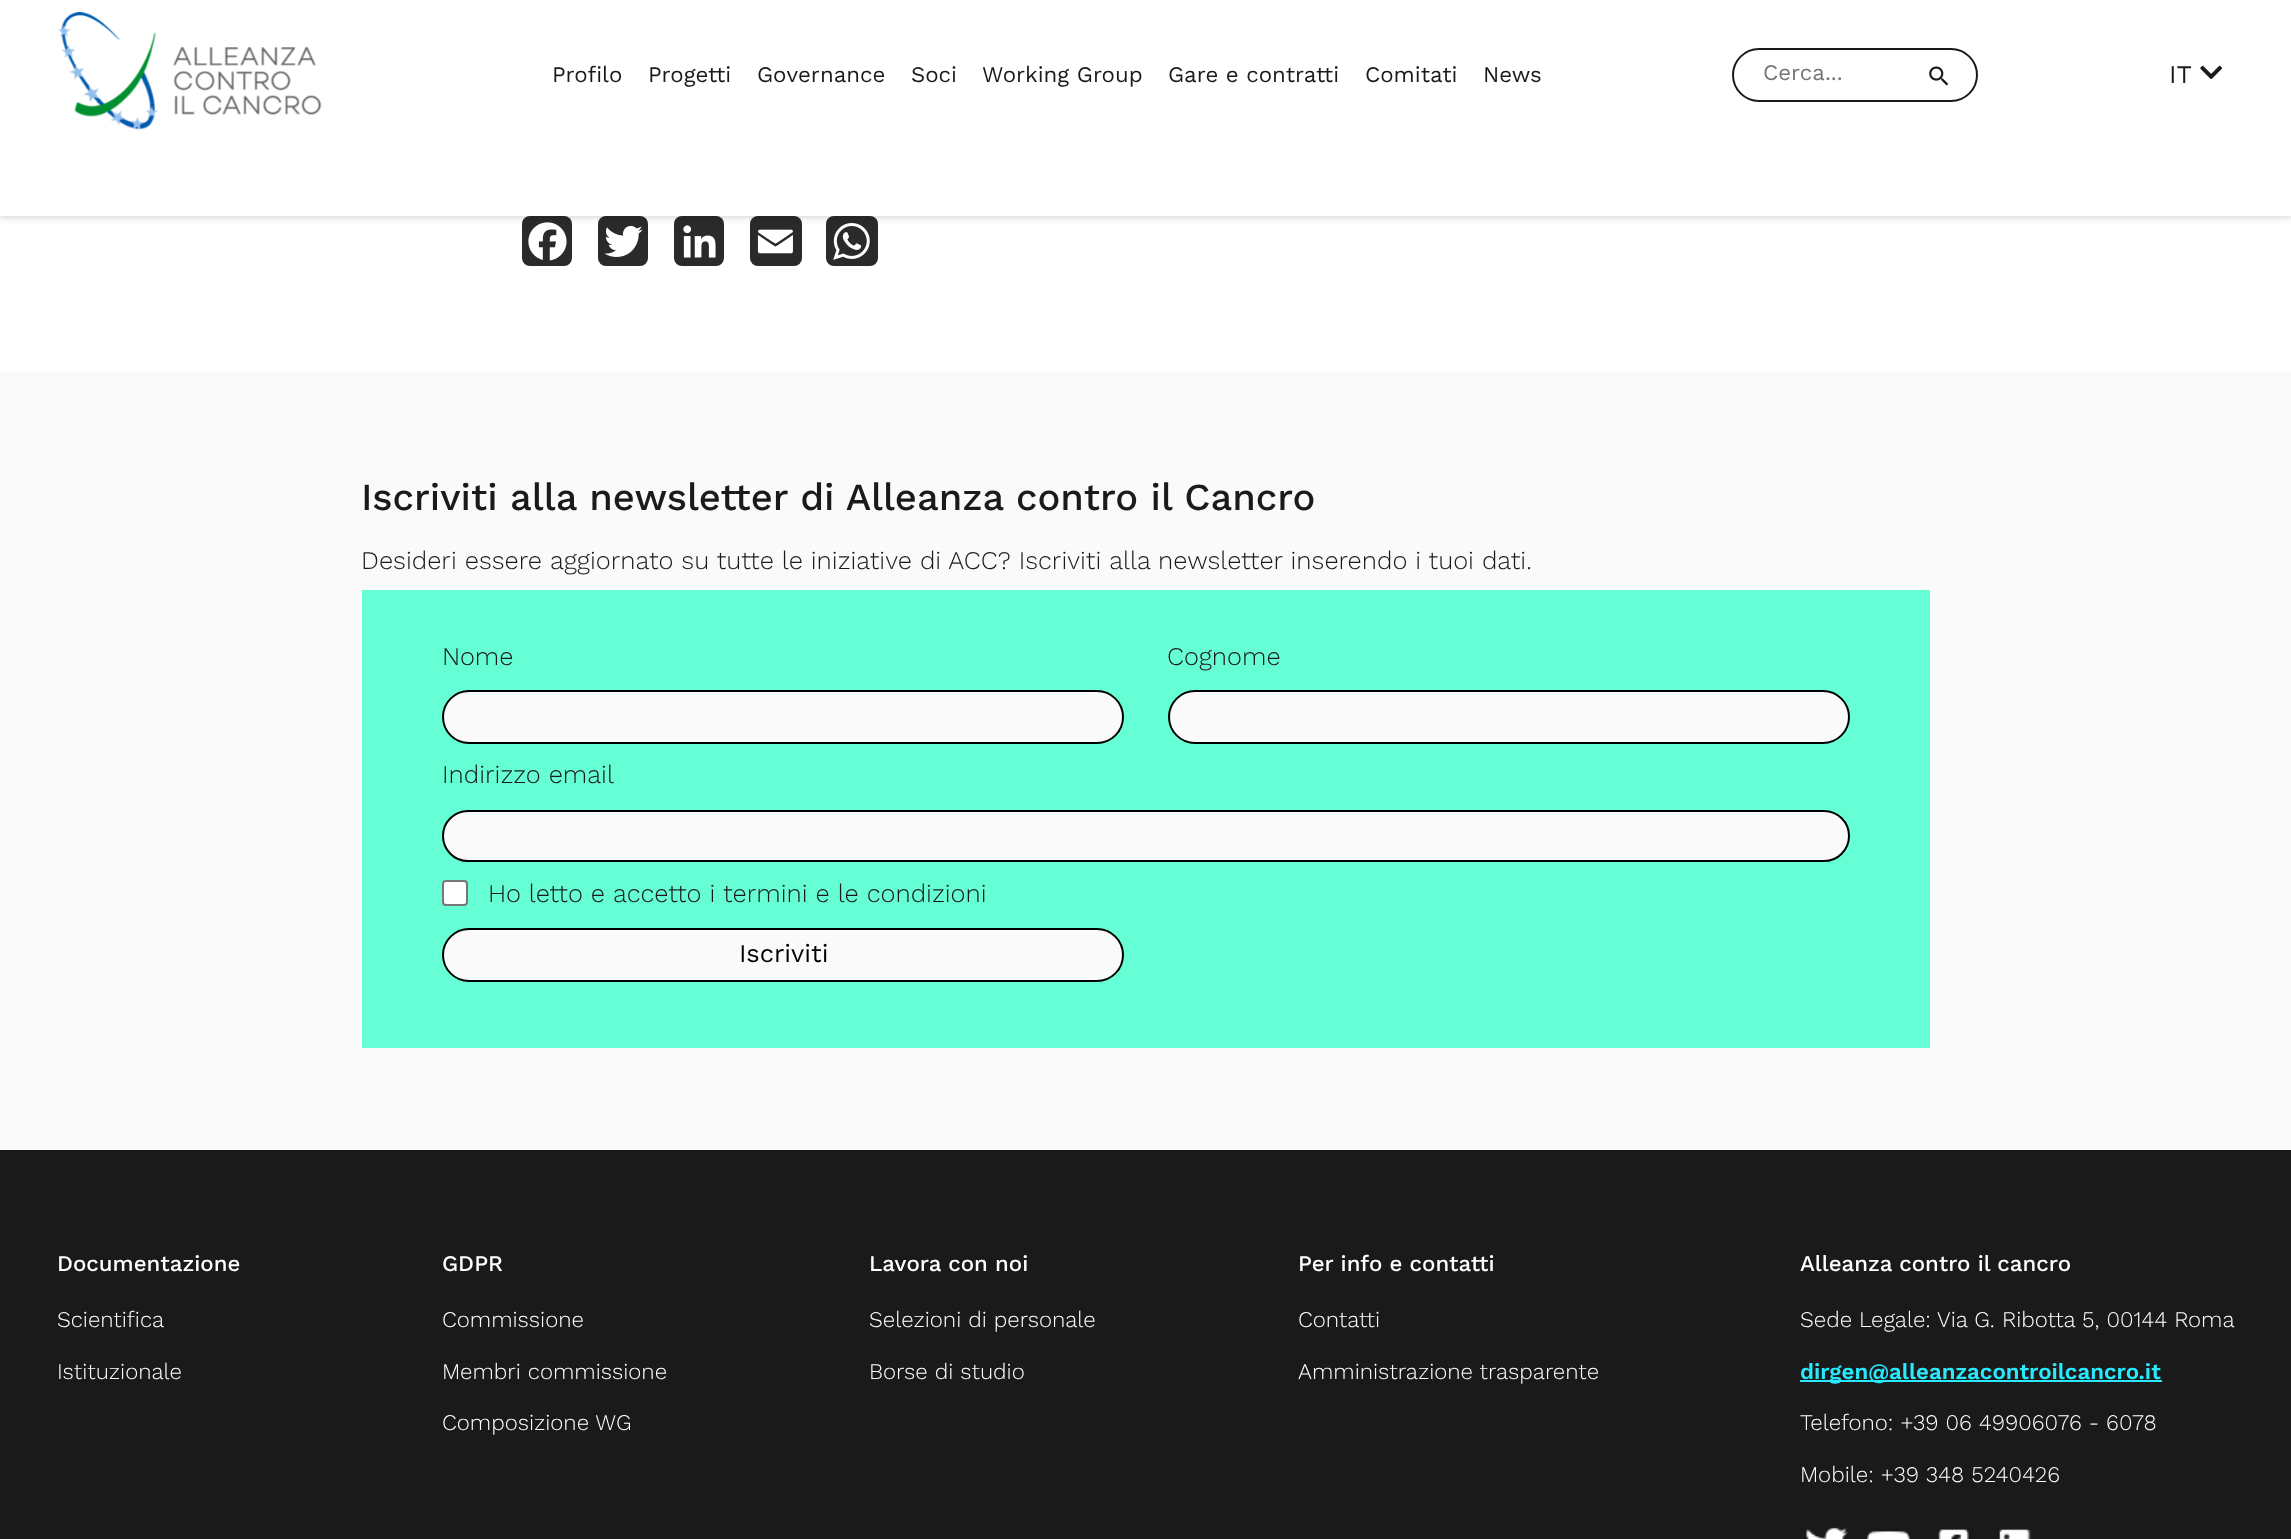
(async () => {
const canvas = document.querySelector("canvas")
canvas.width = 2291
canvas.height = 1539
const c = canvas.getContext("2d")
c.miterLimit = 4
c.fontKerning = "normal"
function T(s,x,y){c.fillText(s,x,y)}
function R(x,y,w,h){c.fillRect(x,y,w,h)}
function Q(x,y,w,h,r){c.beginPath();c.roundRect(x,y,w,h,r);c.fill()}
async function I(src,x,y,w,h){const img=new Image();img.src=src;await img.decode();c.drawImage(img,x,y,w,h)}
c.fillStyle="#fff"
R(0,0,2291,1539)
c.fillStyle="#2a2a2a"
Q(522,216,50,50,8)
await I("4.png",528,222,39,39)
Q(598,216,50,50,8)
await I("5.png",604,225,39,32)
Q(674,216,50,50,8)
await I("6.png",683,225,33,33)
Q(750,216,52,50,8)
Q(826,216,52,50,8)
await I("8.png",833,223,37,37)
c.fillStyle="#00000026"
c.filter="blur(3px)"
c.beginPath()
c.rect(0,2,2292,216)
c.fill()
c.filter="none"
c.fillStyle="#fff"
R(0,0,2291,216)
await I("1.png",57,12,265,119)
c.font="22.25px Work Sans"
c.fillStyle="#1a1a1a"
T("Profilo",552,82)
T("Progetti",648,82)
T("Governance",757,82)
T("Soci",911,82)
T("Working Group",982,82)
T("Gare e contratti",1168,82)
T("Comitati",1365,82)
T("News",1483,82)
c.beginPath()
c.roundRect(1733,49,244,52,26)
c.strokeStyle="#1a1a1a"
c.lineWidth=2
c.stroke()
c.fillStyle="#757575"
T("Cerca...",1763,80)
await I("2.png",1929,66,20,20)
c.font="25.45px Work Sans"
c.fillStyle="#1a1a1a"
T("IT",2169,83)
await I("3.png",2200,65,22,14)
await I("7.png",757,229,36,25)
c.fillStyle="#fafafa"
R(0,372,2291,778)
c.font="500 38.2px Work Sans"
c.fillStyle="#1a1a1a"
T("Iscriviti alla newsletter di Alleanza contro il Cancro",361,510)
c.font="300 25.45px Work Sans"
T("Desideri essere aggiornato su tutte le iniziative di ACC? Iscriviti alla newsletter inserendo i tuoi dati.",361,569)
c.fillStyle="#66ffd5"
R(362,590,1568,458)
c.fillStyle="#1a1a1a"
T("Nome",442,665)
c.fillStyle="#fafafa"
c.beginPath()
c.roundRect(443,691,680,52,26)
c.fill()
c.strokeStyle="#000"
c.stroke()
c.fillStyle="#1a1a1a"
T("Cognome",1167,665)
c.fillStyle="#fafafa"
c.beginPath()
c.roundRect(1169,691,680,52,26)
c.fill()
c.stroke()
c.fillStyle="#1a1a1a"
T("Indirizzo email",442,783)
c.fillStyle="#fafafa"
c.beginPath()
c.roundRect(443,811,1406,50,25)
c.fill()
c.stroke()
c.fillStyle="#fff"
c.beginPath()
c.roundRect(443,881,24,24,3)
c.fill()
c.strokeStyle="#767676"
c.stroke()
c.fillStyle="#1a1a1a"
T("Ho letto e accetto i",488,902)
T("termini e le condizioni",723,902)
c.fillStyle="#fafafa"
c.beginPath()
c.roundRect(443,929,680,52,26)
c.fill()
c.strokeStyle="#000"
c.stroke()
c.font="25.45px Work Sans"
c.fillStyle="#000"
T("Iscriviti",739,962)
c.fillStyle="#1a1a1a"
R(0,1150,2291,389)
c.font="500 22.25px Work Sans"
c.fillStyle="#fff"
T("Documentazione",57,1271)
c.font="300 22.25px Work Sans"
T("Scientifica",57,1327)
T("Istituzionale",57,1379)
c.font="500 22.25px Work Sans"
T("GDPR",442,1271)
c.font="300 22.25px Work Sans"
T("Commissione",442,1327)
T("Membri commissione",442,1379)
T("Composizione WG",442,1430)
c.font="500 22.25px Work Sans"
T("Lavora con noi",869,1271)
c.font="300 22.25px Work Sans"
T("Selezioni di personale",869,1327)
T("Borse di studio",869,1379)
c.font="500 22.25px Work Sans"
T("Per info e contatti",1298,1271)
c.font="300 22.25px Work Sans"
T("Contatti",1298,1327)
T("Amministrazione trasparente",1298,1379)
c.font="500 22.25px Work Sans"
T("Alleanza contro il cancro",1800,1271)
c.font="300 22.25px Work Sans"
T("Sede Legale: Via G.",1800,1327)
T("Ribotta 5, 00144 Roma",2002,1327)
c.fillStyle="#29e9ff"
R(1800,1380,362,2)
c.font="600 22.25px Work Sans"
T("dirgen@alleanzacontroilcancro.it",1800,1379)
c.font="300 22.25px Work Sans"
c.fillStyle="#fff"
T("Telefono: +39 06 49906076 - 6078",1800,1430)
T("Mobile: +39 348 5240426",1800,1482)
await I("9.png",1806,1527,42,12)
await I("10.png",1866,1531,44,8)
await I("11.png",1938,1529,31,10)
await I("12.png",1999,1529,33,10)
})()
